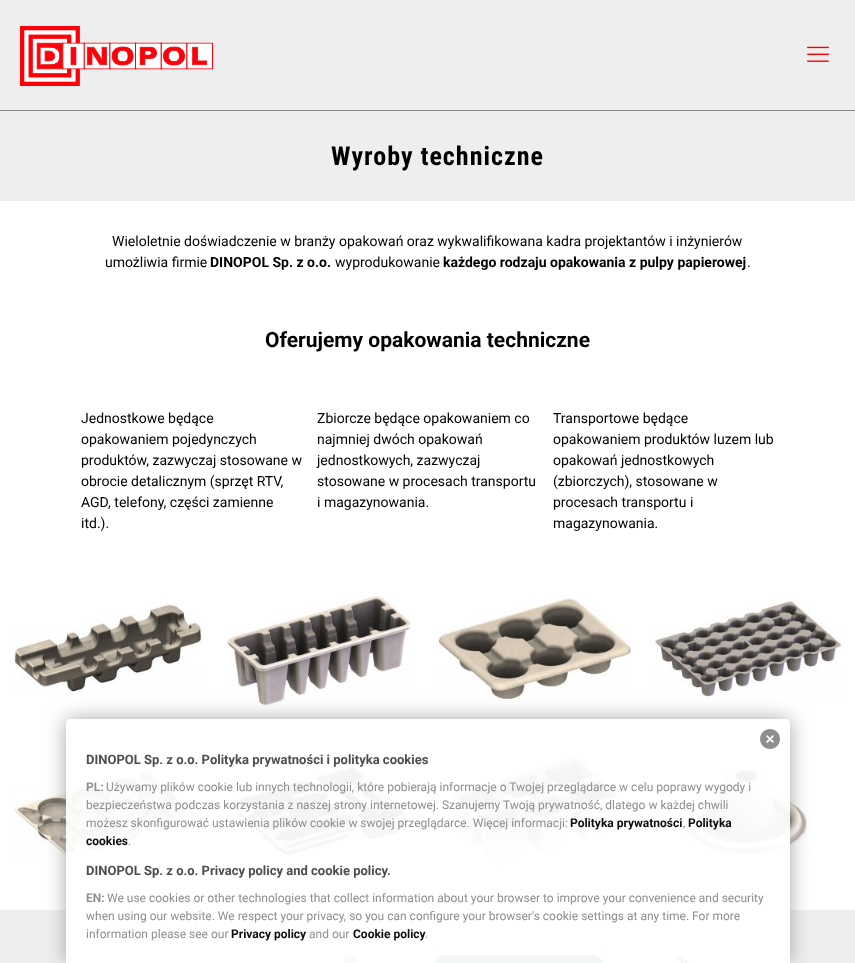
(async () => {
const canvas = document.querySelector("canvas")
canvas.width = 855
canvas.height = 963
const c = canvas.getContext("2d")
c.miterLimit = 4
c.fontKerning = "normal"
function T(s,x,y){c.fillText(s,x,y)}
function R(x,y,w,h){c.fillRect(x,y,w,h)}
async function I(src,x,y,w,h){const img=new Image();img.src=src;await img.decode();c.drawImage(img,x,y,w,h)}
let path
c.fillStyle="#fff"
R(0,0,855,963)
c.fillStyle="#eee"
R(0,0,855,110)
c.fillStyle="#888"
R(0,110,855,1)
await I("1.png",20,26,193,60)
await I("2.png",807,46,22,16)
c.fillStyle="#eee"
R(0,111,855,90)
c.letterSpacing="1px"
c.font="bold 26px Roboto Condensed"
c.fillStyle="#000"
T("Wyroby techniczne",331,165)
c.letterSpacing="0px"
c.font="14px Roboto"
T("Wieloletnie doświadczenie w branży opakowań oraz wykwalifikowana kadra projektantów i inżynierów",112,246)
T("umożliwia firmie",105,267)
c.font="bold 14px Roboto"
T("DINOPOL Sp. z o.o.",210,267)
c.font="14px Roboto"
T("wyprodukowanie",335,267)
c.font="bold 14px Roboto"
T("każdego rodzaju opakowania z pulpy papierowej",443,267)
c.font="14px Roboto"
T(".",747,267)
c.font="bold 21px Roboto"
T("Oferujemy opakowania techniczne",265,347)
c.font="14px Roboto"
T("Jednostkowe będące",81,423)
T("opakowaniem pojedynczych",81,444)
T("produktów, zazwyczaj stosowane w",81,465)
T("obrocie detalicznym (sprzęt RTV,",81,486)
T("AGD, telefony, części zamienne",81,507)
T("itd.).",81,528)
T("Zbiorcze będące opakowaniem co",317,423)
T("najmniej dwóch opakowań",317,444)
T("jednostkowych, zazwyczaj",317,465)
T("stosowane w procesach transportu",317,486)
T("i magazynowania.",317,507)
T("Transportowe będące",553,423)
T("opakowaniem produktów luzem lub",553,444)
T("opakowań jednostkowych",553,465)
T("(zbiorczych), stosowane w",553,486)
T("procesach transportu i",553,507)
T("magazynowania.",553,528)
await I("3.png",9,602,194,93)
await I("4.png",225,593,187,114)
await I("5.png",436,598,195,103)
await I("6.png",650,601,192,97)
await I("7.png",13,768,186,94)
await I("8.png",228,764,183,93)
await I("9.png",448,749,174,118)
await I("10.png",683,765,126,93)
c.fillStyle="#eee"
R(0,910,855,53)
await I("11.png",344,955,13,8)
await I("12.png",435,955,168,8)
await I("13.png",677,955,12,8)
c.save()
path = new Path2D("M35 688h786v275h-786zm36 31h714c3 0 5 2 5 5v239h-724v-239c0-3 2-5 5-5z")
c.clip(path,"evenodd")
c.fillStyle="#a1a1a1f2"
c.filter="blur(10px)"
c.beginPath()
c.roundRect(66,719,724,244,5)
c.fill()
c.filter="none"
c.restore()
c.fillStyle="#fffffff2"
c.beginPath()
c.roundRect(66,719,724,244,[5,5,0,0])
c.fill()
await I("14.png",760,729,20,20)
c.font="bold 13px Roboto"
c.fillStyle="#4d4d4d"
T("DINOPOL Sp. z o.o. Polityka prywatności i polityka cookies",86,764)
c.font="bold 12px Roboto"
c.fillStyle="#8e8e8e"
T("PL:",86,791)
c.font="12px Roboto"
T("Używamy plików cookie lub innych technologii, które pobierają informacje o Twojej przeglądarce w celu poprawy wygody i",106,791)
T("bezpieczeństwa podczas korzystania z naszej strony internetowej. Szanujemy Twoją prywatność, dlatego w każdej chwili",86,809)
T("możesz skonfigurować ustawienia plików cookie w swojej przeglądarce. Więcej informacji:",86,827)
c.font="bold 12px Roboto"
c.fillStyle="#0d0d0d"
T("Polityka prywatności",570,827)
c.font="12px Roboto"
c.fillStyle="#8e8e8e"
T(",",683,827)
c.font="bold 12px Roboto"
c.fillStyle="#0d0d0d"
T("Polityka",688,827)
T("cookies",86,845)
c.font="12px Roboto"
c.fillStyle="#8e8e8e"
T(".",128,845)
c.font="bold 13px Roboto"
c.fillStyle="#4d4d4d"
T("DINOPOL Sp. z o.o. Privacy policy and cookie policy.",86,875)
c.font="bold 12px Roboto"
c.fillStyle="#8e8e8e"
T("EN:",86,902)
c.font="12px Roboto"
T("We use cookies or other technologies that collect information about your browser to improve your convenience and security",107,902)
T("when using our website. We respect your privacy, so you can configure your browser's cookie settings at any time. For more",86,920)
T("information please see our",86,938)
c.font="bold 12px Roboto"
c.fillStyle="#0d0d0d"
T("Privacy policy",231,938)
c.font="12px Roboto"
c.fillStyle="#8e8e8e"
T("and our",309,938)
c.font="bold 12px Roboto"
c.fillStyle="#0d0d0d"
T("Cookie policy",353,938)
c.font="12px Roboto"
c.fillStyle="#8e8e8e"
T(".",425,938)
})()
